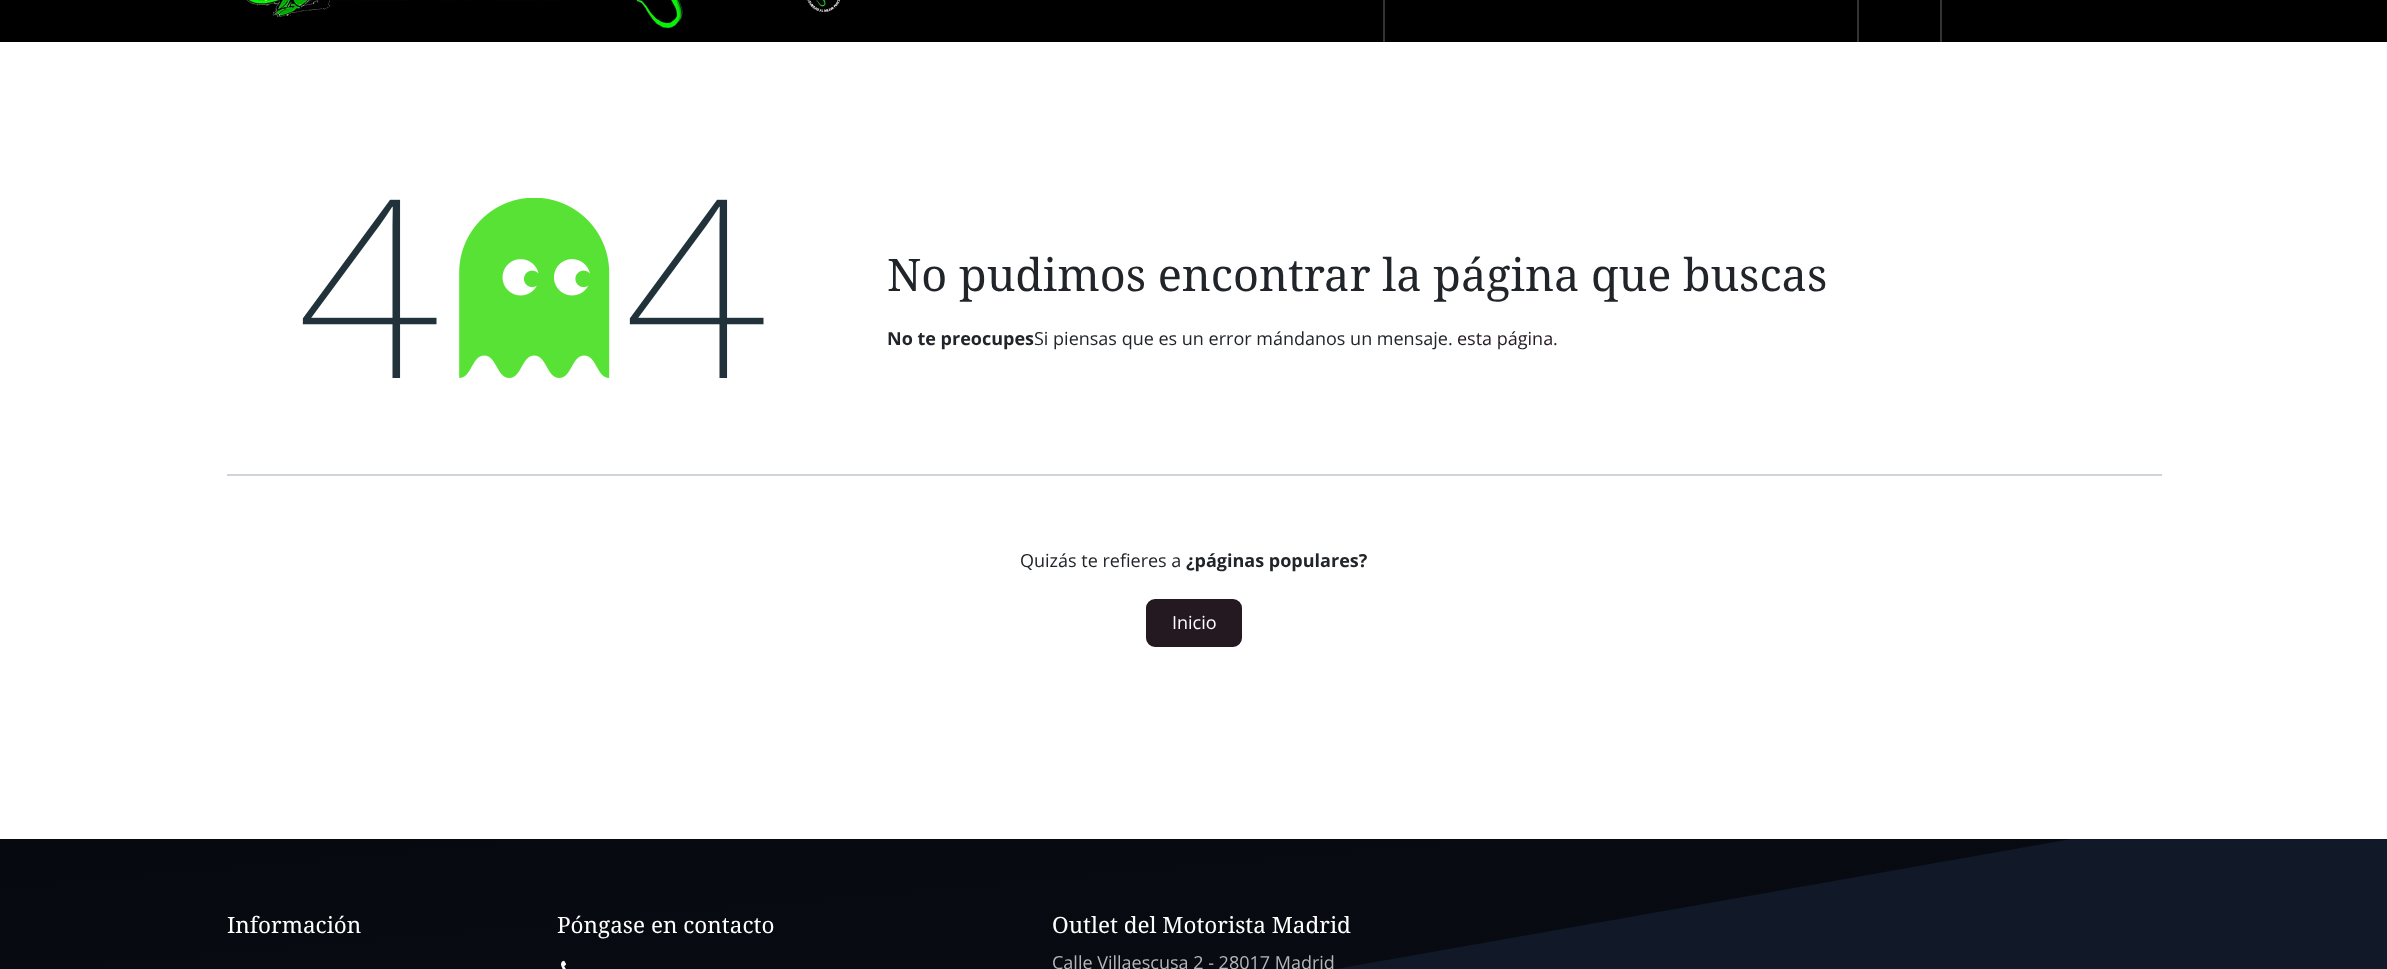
(async () => {
const canvas = document.querySelector("canvas")
canvas.width = 2387
canvas.height = 969
const c = canvas.getContext("2d")
c.miterLimit = 4
c.fontKerning = "normal"
function T(s,x,y){c.fillText(s,x,y)}
function R(x,y,w,h){c.fillRect(x,y,w,h)}
async function I(src,x,y,w,h){const img=new Image();img.src=src;await img.decode();c.drawImage(img,x,y,w,h)}
let gradient, path
c.fillStyle="#fff"
R(0,0,2387,969)
c.fillStyle="#000"
R(0,0,2387,42)
await I("1.png",247,0,593,29)
c.fillStyle="#333"
R(1383,0,2,42)
R(1857,0,2,42)
R(1940,0,2,42)
await I("2.png",302,198,462,180)
c.font="45px Noto Serif"
c.fillStyle="#212529"
T("No pudimos encontrar la página que buscas",887,291)
c.font="bold 18px Open Sans"
T("No te preocupes",887,345)
c.font="18px Open Sans"
T("Si piensas que es un error mándanos un mensaje.",1034,345)
c.fillStyle="#241821"
T("esta página",1457,345)
c.fillStyle="#212529"
T(".",1553,345)
c.fillStyle="#ced4da"
R(227,474,1935,2)
c.fillStyle="#212529"
T("Quizás te refieres a",1020,567)
c.font="bold 18px Open Sans"
T("¿páginas populares?",1186,567)
c.fillStyle="#241821"
c.beginPath()
c.roundRect(1147,600,94,46,8)
c.fill()
c.strokeStyle="#241821"
c.lineWidth=2
c.stroke()
c.font="18px Open Sans"
c.fillStyle="#fff"
T("Inicio",1172,629)
gradient = c.createLinearGradient(1128,-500,1416,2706)
gradient.addColorStop(0,"#000")
gradient.addColorStop(1,"#111827")
c.fillStyle = gradient
R(0,839,2071,130)
c.save()
c.beginPath()
c.rect(0,839,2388,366)
c.clip()
c.fillStyle="#111827"
path = new Path2D("M0 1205l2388-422v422z")
c.fill(path)
c.restore()
c.font="22.5px Noto Serif"
c.fillStyle="#fff"
T("Información",227,933)
T("Póngase en contacto",557,933)
await I("3.png",561,960,6,9)
T("Outlet del Motorista Madrid",1052,933)
c.font="18px Open Sans"
c.fillStyle="#b5b6b8"
T("Calle Villaescusa 2 - 28017 Madrid",1052,969)
})()
